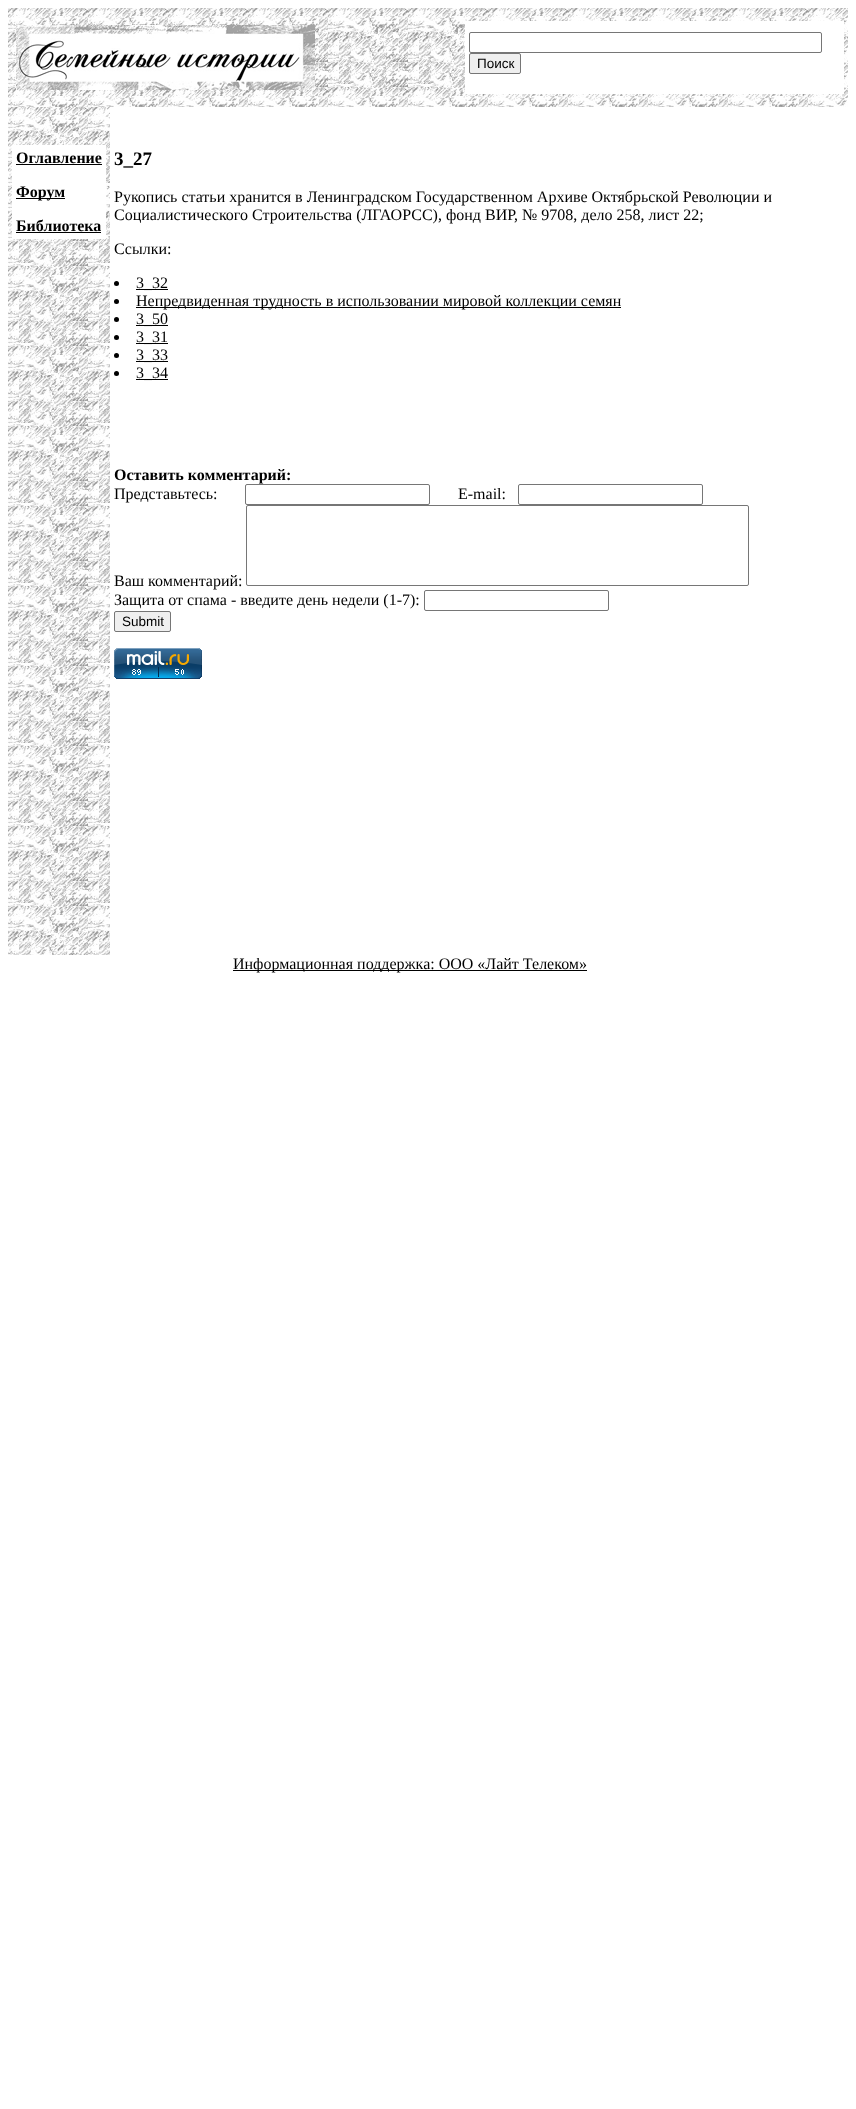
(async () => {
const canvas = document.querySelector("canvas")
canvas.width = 856
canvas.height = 2109
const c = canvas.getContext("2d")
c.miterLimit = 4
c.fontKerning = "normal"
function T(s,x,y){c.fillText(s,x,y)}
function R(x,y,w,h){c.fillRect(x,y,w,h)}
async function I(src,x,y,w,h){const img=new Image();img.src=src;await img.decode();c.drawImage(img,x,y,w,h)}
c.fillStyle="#fff"
R(0,0,856,2109)
await I("1.png",8,8,840,99)
await I("2.png",16,25,299,65)
R(465,21,379,73)
c.beginPath()
c.roundRect(469.5,32.5,352,20,1.5)
c.strokeStyle="#767676"
c.stroke()
c.fillStyle="#efefef"
c.beginPath()
c.roundRect(469.5,53.5,51,20,1.5)
c.fill()
c.stroke()
c.font="13.5px Liberation Sans"
c.fillStyle="#000"
T("Поиск",477,68)
await I("3.png",8,107,102,848)
c.fillStyle="#fff"
R(12,145,94,94)
c.font="bold 16px Liberation Serif"
c.fillStyle="#000"
T("Оглавление",16,163)
R(16,164,86,1)
R(16,198,49,1)
T("Форум",16,197)
T("Библиотека",16,231)
R(16,232,85,1)
c.font="bold 19px Liberation Serif"
T("3_27",114,165)
c.font="16px Liberation Serif"
T("Рукопись статьи хранится в Ленинградском Государственном Архиве Октябрьской Революции и",114,202)
T("Социалистического Строительства (ЛГАОРСС), фонд ВИР, № 9708, дело 258, лист 22;",114,220)
T("Ссылки:",114,254)
c.beginPath()
c.arc(116.5,283.5,2.5,0,7)
c.fill()
R(136,289,32,1)
T("3_32",136,288)
c.beginPath()
c.arc(116.5,301.5,2.5,0,7)
c.fill()
R(136,307,485,1)
T("Непредвиденная трудность в использовании мировой коллекции семян",136,306)
c.beginPath()
c.arc(116.5,319.5,2.5,0,7)
c.fill()
R(136,325,32,1)
T("3_50",136,324)
c.beginPath()
c.arc(116.5,337.5,2.5,0,7)
c.fill()
R(136,343,32,1)
T("3_31",136,342)
c.beginPath()
c.arc(116.5,355.5,2.5,0,7)
c.fill()
R(136,361,32,1)
T("3_33",136,360)
c.beginPath()
c.arc(116.5,373.5,2.5,0,7)
c.fill()
R(136,379,32,1)
T("3_34",136,378)
c.font="bold 16px Liberation Serif"
T("Оставить комментарий:",114,480)
c.font="16px Liberation Serif"
T("Представьтесь:",114,499)
c.beginPath()
c.roundRect(245.5,484.5,184,20,1.5)
c.stroke()
T("E-mail:",458,499)
c.beginPath()
c.roundRect(518.5,484.5,184,20,1.5)
c.stroke()
T("Ваш комментарий:",114,586)
c.beginPath()
c.roundRect(246.5,505.5,502,80,1.5)
c.stroke()
T("Защита от спама - введите день недели (1-7):",114,605)
c.beginPath()
c.roundRect(424.5,590.5,184,20,1.5)
c.stroke()
c.fillStyle="#efefef"
c.beginPath()
c.roundRect(114.5,611.5,56,20,1.5)
c.fill()
c.stroke()
c.font="13.5px Liberation Sans"
c.fillStyle="#000"
T("Submit",122,626)
await I("4.png",114,648,88,31)
R(233,970,354,1)
c.font="16px Liberation Serif"
T("Информационная поддержка: ООО «Лайт Телеком»",233,969)
})()
